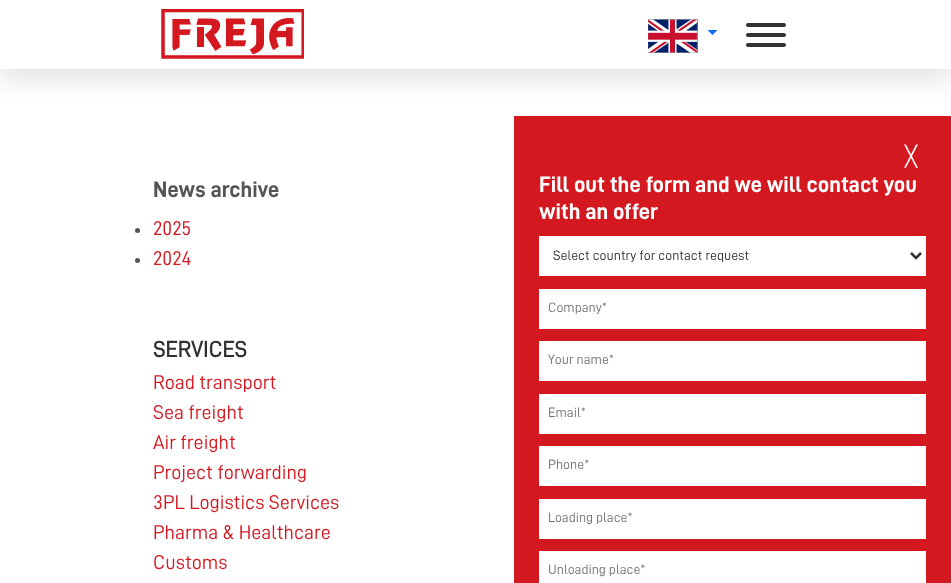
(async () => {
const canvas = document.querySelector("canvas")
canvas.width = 951
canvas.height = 583
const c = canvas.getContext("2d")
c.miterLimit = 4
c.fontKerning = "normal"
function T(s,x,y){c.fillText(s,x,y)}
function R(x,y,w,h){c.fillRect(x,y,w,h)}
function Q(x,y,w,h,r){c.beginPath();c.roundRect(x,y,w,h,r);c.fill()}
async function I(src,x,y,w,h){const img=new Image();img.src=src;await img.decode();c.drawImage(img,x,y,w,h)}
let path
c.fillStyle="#fff"
R(0,0,951,583)
c.fillStyle="#0000001a"
c.filter="blur(12px)"
c.beginPath()
c.rect(0,13,951,68)
c.fill()
c.filter="none"
c.fillStyle="#fff"
R(0,0,951,69)
await I("1.png",161,9,143,50)
await I("2.png",648,19,50,34)
c.fillStyle="#0d6efd"
path = new Path2D("M707.5 30h10l-5 5z")
c.fill(path)
c.fillStyle="#333"
Q(746,23,40,4,2)
Q(746,33,40,4,2)
Q(746,43,40,4,2)
c.font="bold 22.5px 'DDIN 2'"
c.fillStyle="#555"
T("News archive",153,197)
c.beginPath()
c.arc(137.5,230.5,2.5,0,7)
c.fill()
c.font="20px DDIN"
c.fillStyle="#d4181f"
T("2025",153,235)
c.fillStyle="#555"
c.beginPath()
c.arc(137.5,260.5,2.5,0,7)
c.fill()
c.fillStyle="#d4181f"
T("2024",153,265)
c.font="bold 22.5px DDIN"
c.fillStyle="#313131"
T("SERVICES",153,357)
c.font="20px DDIN"
c.fillStyle="#d4181f"
T("Road transport",153,389)
T("Sea freight",153,419)
T("Air freight",153,449)
T("Project forwarding",153,479)
T("3PL Logistics Services",153,509)
T("Pharma & Healthcare",153,539)
T("Customs",153,569)
R(514,116,437,467)
c.font="20px DejaVu Sans"
c.fillStyle="#fff"
T("╳",905,163)
c.font="bold 22.5px 'DDIN 2'"
T("Fill out the form and we will contact you",539,192)
T("with an offer",539,219)
R(539,236,387,40)
path = new Path2D("M911 253l5 5l5-5")
c.strokeStyle="#313131"
c.lineWidth=2.5
c.stroke(path)
c.font="13.75px DDIN"
c.fillStyle="#313131"
T("Select country for contact request",553,260)
c.fillStyle="#fff"
R(539,289,387,40)
c.fillStyle="#757575"
T("Company*",548,312)
c.fillStyle="#fff"
R(539,341,387,40)
c.fillStyle="#757575"
T("Your name*",548,364)
c.fillStyle="#fff"
R(539,394,387,40)
c.fillStyle="#757575"
T("Email*",548,417)
c.fillStyle="#fff"
R(539,446,387,40)
c.fillStyle="#757575"
T("Phone*",548,469)
c.fillStyle="#fff"
R(539,499,387,40)
c.fillStyle="#757575"
T("Loading place*",548,522)
c.fillStyle="#fff"
R(539,551,387,32)
c.fillStyle="#757575"
T("Unloading place*",548,574)
})()
